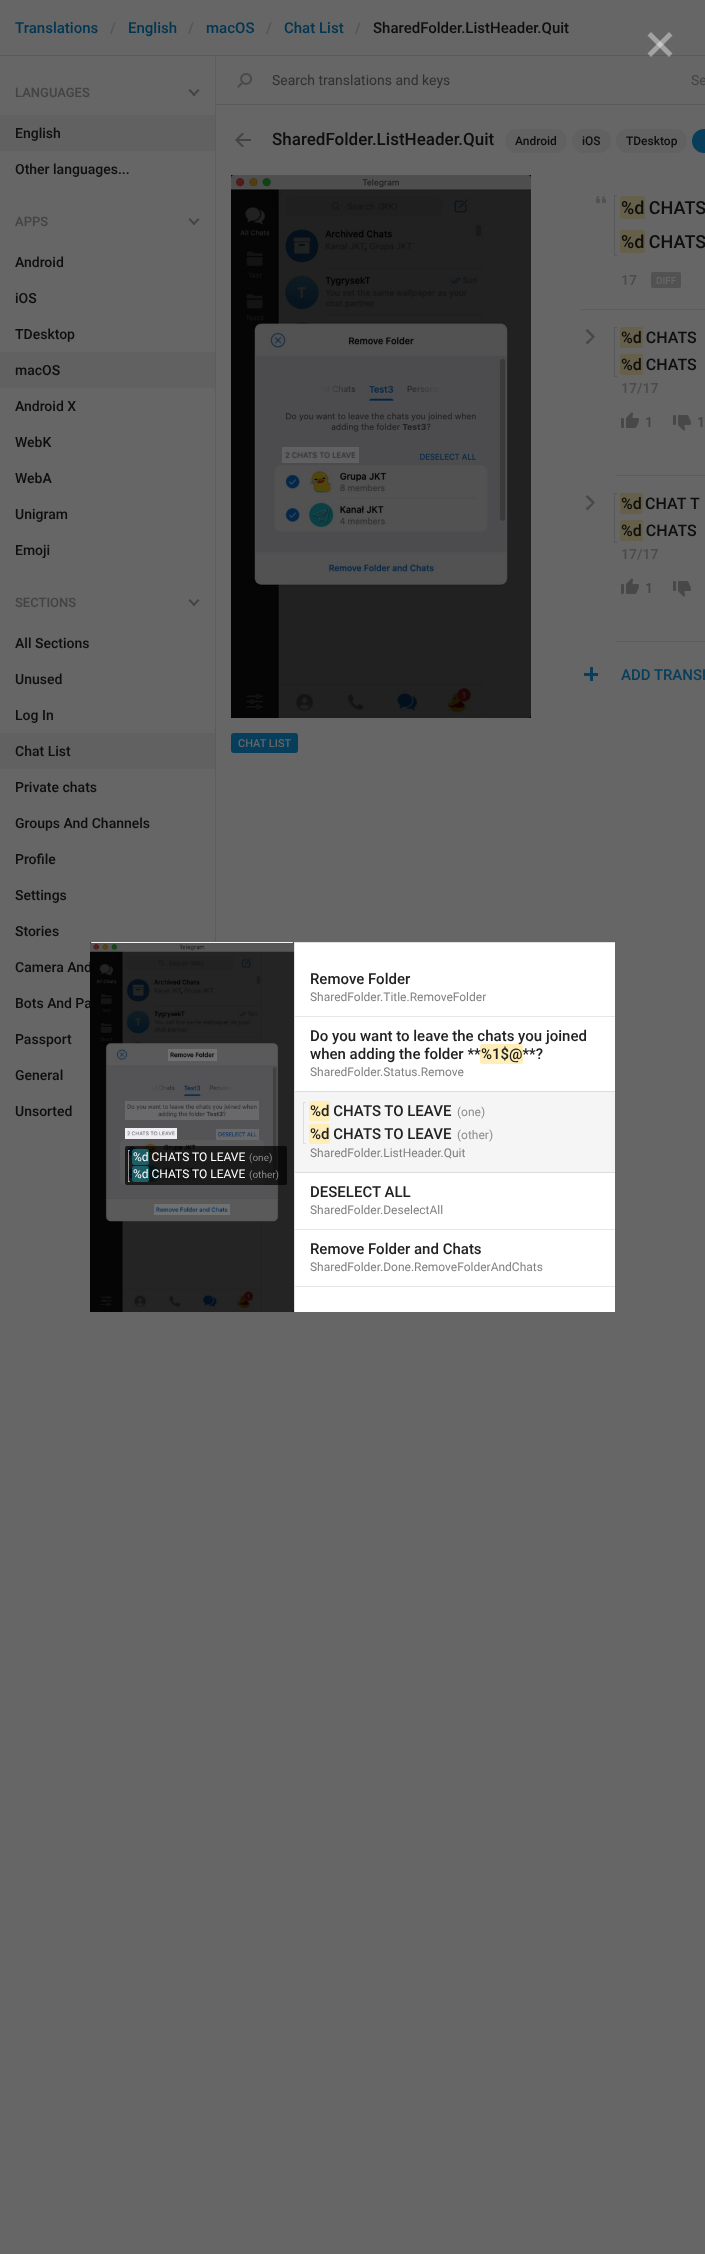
(async () => {
const canvas = document.querySelector("canvas")
canvas.width = 705
canvas.height = 2254
const c = canvas.getContext("2d")
c.miterLimit = 4
c.fontKerning = "normal"
function T(s,x,y){c.fillText(s,x,y)}
function R(x,y,w,h){c.fillRect(x,y,w,h)}
function Q(x,y,w,h,r){c.beginPath();c.roundRect(x,y,w,h,r);c.fill()}
async function I(src,x,y,w,h){const img=new Image();img.src=src;await img.decode();c.drawImage(img,x,y,w,h)}
let path
c.fillStyle="#666"
R(0,0,705,2254)
c.fillStyle="#5a5a5a"
R(0,55,705,1)
c.font="500 15px Roboto"
c.fillStyle="#003652"
T("Translations",15,33)
c.fillStyle="#555"
T("/",110,33)
c.fillStyle="#003652"
T("English",128,33)
c.fillStyle="#555"
T("/",188,33)
c.fillStyle="#003652"
T("macOS",206,33)
c.fillStyle="#555"
T("/",266,33)
c.fillStyle="#003652"
T("Chat List",284,33)
c.fillStyle="#555"
T("/",355,33)
c.fillStyle="#0e0e0e"
T("SharedFolder.ListHeader.Quit",373,33)
c.fillStyle="#5a5a5a"
R(216,104,489,1)
await I("1.png",237,73,15,15)
c.font="14px Roboto"
c.fillStyle="#303030"
T("Search translations and keys",272,85)
c.fillStyle="#434343"
T("Se",691,85)
c.font="500 13px Roboto"
T("LANGUAGES",15,97)
path = new Path2D("M194 96l-5.5-5.5l1.5-1.5l5.5 6z")
c.fill(path)
path = new Path2D("M194 96l-1.5-1l5.5-6l1.5 1.5z")
c.fill(path)
c.fillStyle="#616161"
R(0,115,215,36)
c.font="500 14px Roboto"
c.fillStyle="#0e0e0e"
T("English",15,138)
T("Other languages...",15,174)
c.font="500 13px Roboto"
c.fillStyle="#434343"
T("APPS",15,226)
path = new Path2D("M194 225l-5.5-5.5l1.5-1.5l5.5 6z")
c.fill(path)
path = new Path2D("M194 225l-1.5-1l5.5-6l1.5 1.5z")
c.fill(path)
c.font="500 14px Roboto"
c.fillStyle="#0e0e0e"
T("Android",15,267)
T("iOS",15,303)
T("TDesktop",15,339)
c.fillStyle="#616161"
R(0,352,215,36)
c.fillStyle="#0e0e0e"
T("macOS",15,375)
T("Android X",15,411)
T("WebK",15,447)
T("WebA",15,483)
T("Unigram",15,519)
T("Emoji",15,555)
c.font="500 13px Roboto"
c.fillStyle="#434343"
T("SECTIONS",15,607)
path = new Path2D("M194 606l-5.5-5.5l1.5-1.5l5.5 6z")
c.fill(path)
path = new Path2D("M194 606l-1.5-1l5.5-6l1.5 1.5z")
c.fill(path)
c.font="500 14px Roboto"
c.fillStyle="#0e0e0e"
T("All Sections",15,648)
T("Unused",15,684)
T("Log In",15,720)
c.fillStyle="#616161"
R(0,733,215,36)
c.fillStyle="#0e0e0e"
T("Chat List",15,756)
T("Private chats",15,792)
T("Groups And Channels",15,828)
T("Profile",15,864)
T("Settings",15,900)
T("Stories",15,936)
T("Camera And",15,972)
T("Bots And Pa",15,1008)
T("Passport",15,1044)
T("General",15,1080)
T("Unsorted",15,1116)
c.fillStyle="#5c5c5c"
R(215,56,1,886)
await I("2.png",235,133,16,14)
c.font="500 17px Roboto"
c.fillStyle="#0e0e0e"
T("SharedFolder.ListHeader.Quit",272,145)
c.fillStyle="#616161"
Q(505,129,62,24,12)
c.font="500 12px Roboto"
c.fillStyle="#0e0e0e"
T("Android",515,145)
c.fillStyle="#616161"
Q(572,129,39,24,12)
c.fillStyle="#0e0e0e"
T("iOS",582,145)
c.fillStyle="#616161"
Q(616,129,71,24,12)
c.fillStyle="#0e0e0e"
T("TDesktop",626,145)
c.fillStyle="#063e5b"
Q(692,129,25,24,12)
await I("3.png",596,196,10,7)
c.fillStyle="#585858"
R(614,195,3,1)
R(614,255,3,1)
R(614,195,1,61)
c.beginPath()
c.roundRect(620.5,196.5,24,22,1.5)
c.strokeStyle="#665f4a"
c.stroke()
c.fillStyle="#665f4a"
Q(621,197,23,21,1)
c.font="500 18px Roboto"
c.fillStyle="#0e0e0e"
T("%d CHATS",621,214)
c.beginPath()
c.roundRect(620.5,230.5,24,22,1.5)
c.stroke()
c.fillStyle="#665f4a"
Q(621,231,23,21,1)
c.fillStyle="#0e0e0e"
T("%d CHATS",621,248)
c.font="500 14px Roboto"
c.fillStyle="#4b4b4b"
T("17",621,285)
c.fillStyle="#525252"
Q(651,272,30,16,2)
c.font="500 10px Roboto"
c.fillStyle="#666"
T("DIFF",656,284)
c.fillStyle="#5c5c5c"
R(581,309,124,1)
path = new Path2D("M616 475v1h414v-165h-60v164z")
c.fill(path)
c.fillStyle="#484848"
path = new Path2D("M592 337l-6.5 5.5l2 2l7.5-8l-7.5-7.5l-2 1.5z")
c.fill(path)
c.fillStyle="#585858"
R(614,327,3,1)
R(614,376,3,1)
R(614,327,1,50)
c.beginPath()
c.roundRect(620.5,327.5,22,20,1.5)
c.stroke()
c.fillStyle="#665f4a"
Q(621,328,21,19,1)
c.font="500 16px Roboto"
c.fillStyle="#0e0e0e"
T("%d CHATS",621,343)
c.beginPath()
c.roundRect(620.5,354.5,22,20,1.5)
c.stroke()
c.fillStyle="#665f4a"
Q(621,355,21,19,1)
c.fillStyle="#0e0e0e"
T("%d CHATS",621,370)
c.font="500 14px Roboto"
c.fillStyle="#4b4b4b"
T("17/17",621,393)
await I("4.png",621,412,18,16)
c.fillStyle="#434343"
T("1",645,427)
await I("5.png",673,415,18,16)
T("1",697,427)
c.fillStyle="#5c5c5c"
path = new Path2D("M616 641v1h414v-165h-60v164z")
c.fill(path)
c.fillStyle="#484848"
path = new Path2D("M592 503l-6.5 5.5l2 2l7.5-8l-7.5-7.5l-2 1.5z")
c.fill(path)
c.fillStyle="#585858"
R(614,493,3,1)
R(614,542,3,1)
R(614,493,1,50)
c.beginPath()
c.roundRect(620.5,493.5,22,20,1.5)
c.stroke()
c.fillStyle="#665f4a"
Q(621,494,21,19,1)
c.font="500 16px Roboto"
c.fillStyle="#0e0e0e"
T("%d",621,509)
T("CHAT",645,509)
T("T",690,509)
c.beginPath()
c.roundRect(620.5,520.5,22,20,1.5)
c.stroke()
c.fillStyle="#665f4a"
Q(621,521,21,19,1)
c.fillStyle="#0e0e0e"
T("%d CHATS",621,536)
c.font="500 14px Roboto"
c.fillStyle="#4b4b4b"
T("17/17",621,559)
await I("4.png",621,578,18,16)
c.fillStyle="#434343"
T("1",645,593)
await I("5.png",673,581,18,16)
c.fillStyle="#063e5b"
R(584,673,14,3)
R(590,667,3,14)
c.font="500 15px Roboto"
T("ADD TRANSL",621,680)
await I("6.png",231,175,300,543)
await I("7.png",282,447,77,16)
Q(231,733,67,20,3)
c.font="500 11px Roboto"
c.fillStyle="#666"
T("CHAT LIST",238,747)
c.fillStyle="#ffffff66"
path = new Path2D("M651 32l21.5 21.5l-3.5 3.5l-21.5-21.5z")
c.fill(path)
path = new Path2D("M647.5 53.5l21.5-21.5l3.5 3.5l-21.5 21.5z")
c.fill(path)
c.fillStyle="#e0e0e0"
R(294,942,321,1)
await I("8.png",90,942,204,370)
await I("9.png",168,1049,49,12)
await I("10.png",125,1101,134,19)
await I("11.png",216,1129,43,11)
await I("13.png",154,1204,76,11)
c.fillStyle="#0000008f"
R(90,943,204,369)
await I("12.png",125,1128,52,11)
c.fillStyle="#000000b3"
Q(125,1146,162,39,2)
c.fillStyle="#8f9396"
R(128,1150,2,1)
c.fillStyle="#979797"
R(128,1181,2,1)
c.fillStyle="#ccccccb3"
R(128,1150,1,32)
c.beginPath()
c.roundRect(132.5,1149.5,16,15,1.5)
c.strokeStyle="#217b86b3"
c.stroke()
c.fillStyle="#217b86b3"
Q(133,1150,15,14,1)
c.font="12px Roboto"
c.fillStyle="#fff"
T("%d CHATS TO LEAVE",133,1161)
c.font="10px Roboto"
c.fillStyle="#8c8c8c"
T("(one)",249,1161)
c.beginPath()
c.roundRect(132.5,1166.5,16,15,1.5)
c.stroke()
c.fillStyle="#217b86b3"
Q(133,1167,15,14,1)
c.font="12px Roboto"
c.fillStyle="#fff"
T("%d CHATS TO LEAVE",133,1178)
c.font="10px Roboto"
c.fillStyle="#8c8c8c"
T("(other)",249,1178)
c.fillStyle="#fff"
R(295,943,320,369)
c.fillStyle="#e0e0e0"
R(294,943,1,369)
c.fillStyle="#e7e7e7"
R(295,1016,320,1)
c.font="500 15px Roboto"
c.fillStyle="#222"
T("Remove Folder",310,984)
c.font="12px Roboto"
c.fillStyle="#808080"
T("SharedFolder.Title.RemoveFolder",310,1001)
c.beginPath()
c.roundRect(480.5,1044.5,42,19,1.5)
c.strokeStyle="#ffeeb8"
c.stroke()
c.font="500 15px Roboto"
c.fillStyle="#222"
T("Do you want to leave the chats you joined",310,1041)
T("when adding the folder **",310,1059)
c.fillStyle="#ffeeb8"
Q(481,1045,41,18,1)
c.fillStyle="#222"
T("%1$@**?",481,1059)
c.font="12px Roboto"
c.fillStyle="#808080"
T("SharedFolder.Status.Remove",310,1076)
c.fillStyle="#f5f5f5"
R(295,1092,320,80)
c.fillStyle="#dedede"
R(295,1091,320,1)
R(295,1172,320,1)
c.fillStyle="#ddd"
R(303,1102,3,1)
R(303,1143,3,1)
R(303,1102,1,42)
c.beginPath()
c.roundRect(309.5,1101.5,20,19,1.5)
c.stroke()
c.fillStyle="#ffeeb8"
Q(310,1102,19,18,1)
c.font="500 15px Roboto"
c.fillStyle="#222"
T("%d CHATS TO LEAVE",310,1116)
c.font="12px Roboto"
c.fillStyle="#8c8c8c"
T("(one)",457,1116)
c.beginPath()
c.roundRect(309.5,1124.5,20,19,1.5)
c.stroke()
c.fillStyle="#ffeeb8"
Q(310,1125,19,18,1)
c.font="500 15px Roboto"
c.fillStyle="#222"
T("%d CHATS TO LEAVE",310,1139)
c.font="12px Roboto"
c.fillStyle="#8c8c8c"
T("(other)",457,1139)
c.fillStyle="#808080"
T("SharedFolder.ListHeader.Quit",310,1157)
c.fillStyle="#e7e7e7"
R(295,1229,320,1)
c.font="500 15px Roboto"
c.fillStyle="#222"
T("DESELECT ALL",310,1197)
c.font="12px Roboto"
c.fillStyle="#808080"
T("SharedFolder.DeselectAll",310,1214)
c.fillStyle="#e7e7e7"
R(295,1286,320,1)
c.font="500 15px Roboto"
c.fillStyle="#222"
T("Remove Folder and Chats",310,1254)
c.font="12px Roboto"
c.fillStyle="#808080"
T("SharedFolder.Done.RemoveFolderAndChats",310,1271)
})()
